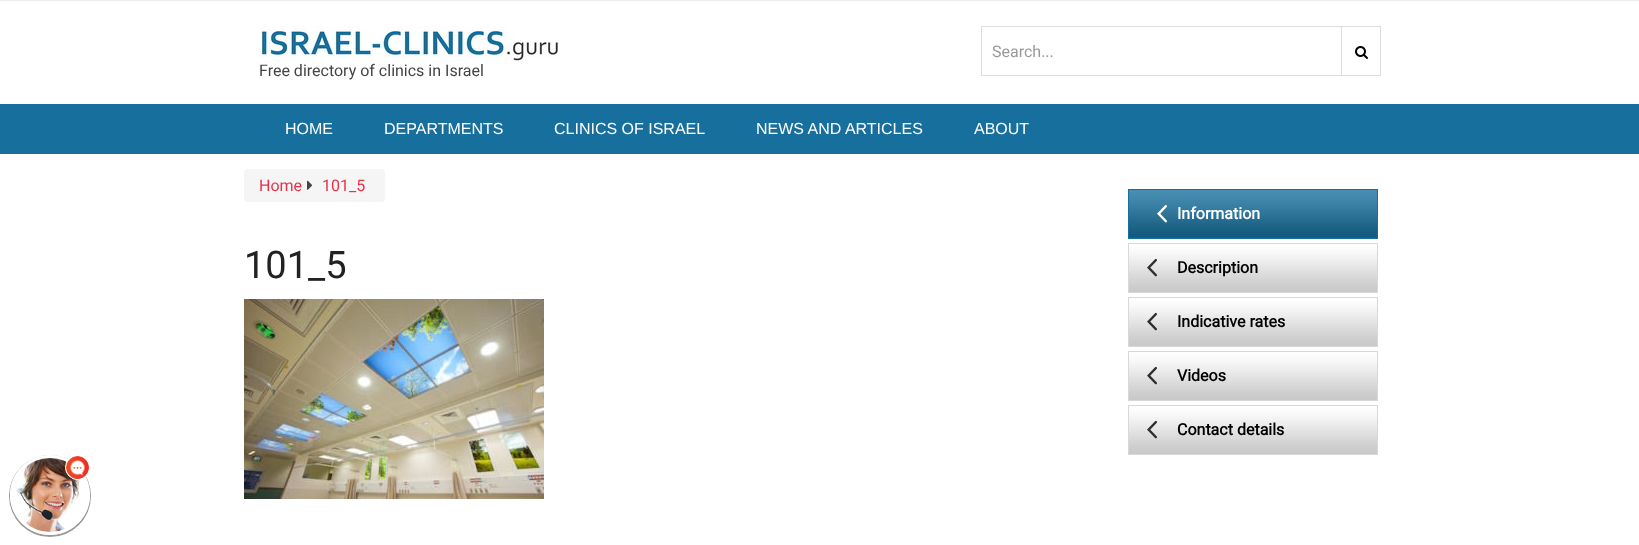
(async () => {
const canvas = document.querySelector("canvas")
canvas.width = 1639
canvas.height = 545
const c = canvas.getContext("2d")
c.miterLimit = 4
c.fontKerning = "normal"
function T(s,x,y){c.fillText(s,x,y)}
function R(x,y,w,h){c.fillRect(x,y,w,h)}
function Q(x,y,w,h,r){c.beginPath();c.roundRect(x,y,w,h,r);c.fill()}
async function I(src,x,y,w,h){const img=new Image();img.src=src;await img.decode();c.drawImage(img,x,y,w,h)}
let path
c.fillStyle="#fff"
R(0,0,1639,545)
c.fillStyle="#ededed"
R(0,0,1639,1)
c.strokeStyle="#ddd"
c.strokeRect(981.5,26.5,399,49)
c.font="16px Roboto"
c.fillStyle="#999"
T("Search...",992,57)
c.fillStyle="#ddd"
R(1341,26,1,50)
await I("1.png",1355,46,13,13)
await I("2.png",259,26,300,37)
c.fillStyle="#444"
T("Free directory of clinics in Israel",259,76)
c.fillStyle="#176f9d"
R(0,104,1639,50)
c.font="16px Liberation Sans"
c.fillStyle="#fff"
T("HOME",285,134)
T("DEPARTMENTS",384,134)
T("CLINICS OF ISRAEL",554,134)
T("NEWS AND ARTICLES",756,134)
T("ABOUT",974,134)
c.fillStyle="#f5f5f5"
Q(244,169,141,33,4)
c.font="16px Roboto"
c.fillStyle="#e93147"
T("Home",259,191)
await I("3.png",307,180,6,10)
T("101_5",322,191)
c.font="38px Roboto"
c.fillStyle="#222"
T("101_5",244,278)
await I("4.png",244,299,300,200)
await I("5.png",1129,190,248,48)
c.strokeStyle="#176f9e"
c.strokeRect(1128.5,189.5,249,49)
await I("6.png",1157,205,10,18)
c.font="bold 16px Roboto"
c.fillStyle="#fff"
T("Information",1177,219)
await I("7.png",1129,244,248,48)
c.strokeStyle="#d8d8d8"
c.strokeRect(1128.5,243.5,249,49)
await I("8.png",1147,258,10,19)
c.fillStyle="#000"
T("Description",1177,273)
await I("7.png",1129,298,248,48)
c.strokeRect(1128.5,297.5,249,49)
await I("8.png",1147,312,10,19)
T("Indicative rates",1177,327)
await I("7.png",1129,352,248,48)
c.strokeRect(1128.5,351.5,249,49)
await I("8.png",1147,366,10,19)
T("Videos",1177,381)
await I("7.png",1129,406,248,48)
c.strokeRect(1128.5,405.5,249,49)
await I("8.png",1147,420,10,19)
T("Contact details",1177,435)
c.save()
path = new Path2D("M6 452h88v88h-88zm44 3c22 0 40 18 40 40c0 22-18 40-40 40c-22 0-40-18-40-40c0-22 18-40 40-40z")
c.clip(path,"evenodd")
c.fillStyle="#00000066"
c.filter="blur(0.5px)"
c.beginPath()
c.roundRect(9,455,82,82,41)
c.fill()
c.filter="none"
c.restore()
c.beginPath()
c.arc(50,495,38.5,0,7)
c.strokeStyle="#fff"
c.lineWidth=3
c.stroke()
await I("9.png",16,458,64,74)
c.fillStyle="#fff"
c.beginPath()
c.arc(77.5,467.5,12,0,7)
c.fill()
c.lineWidth=1
c.stroke()
await I("10.png",66,456,23,23)
})()
